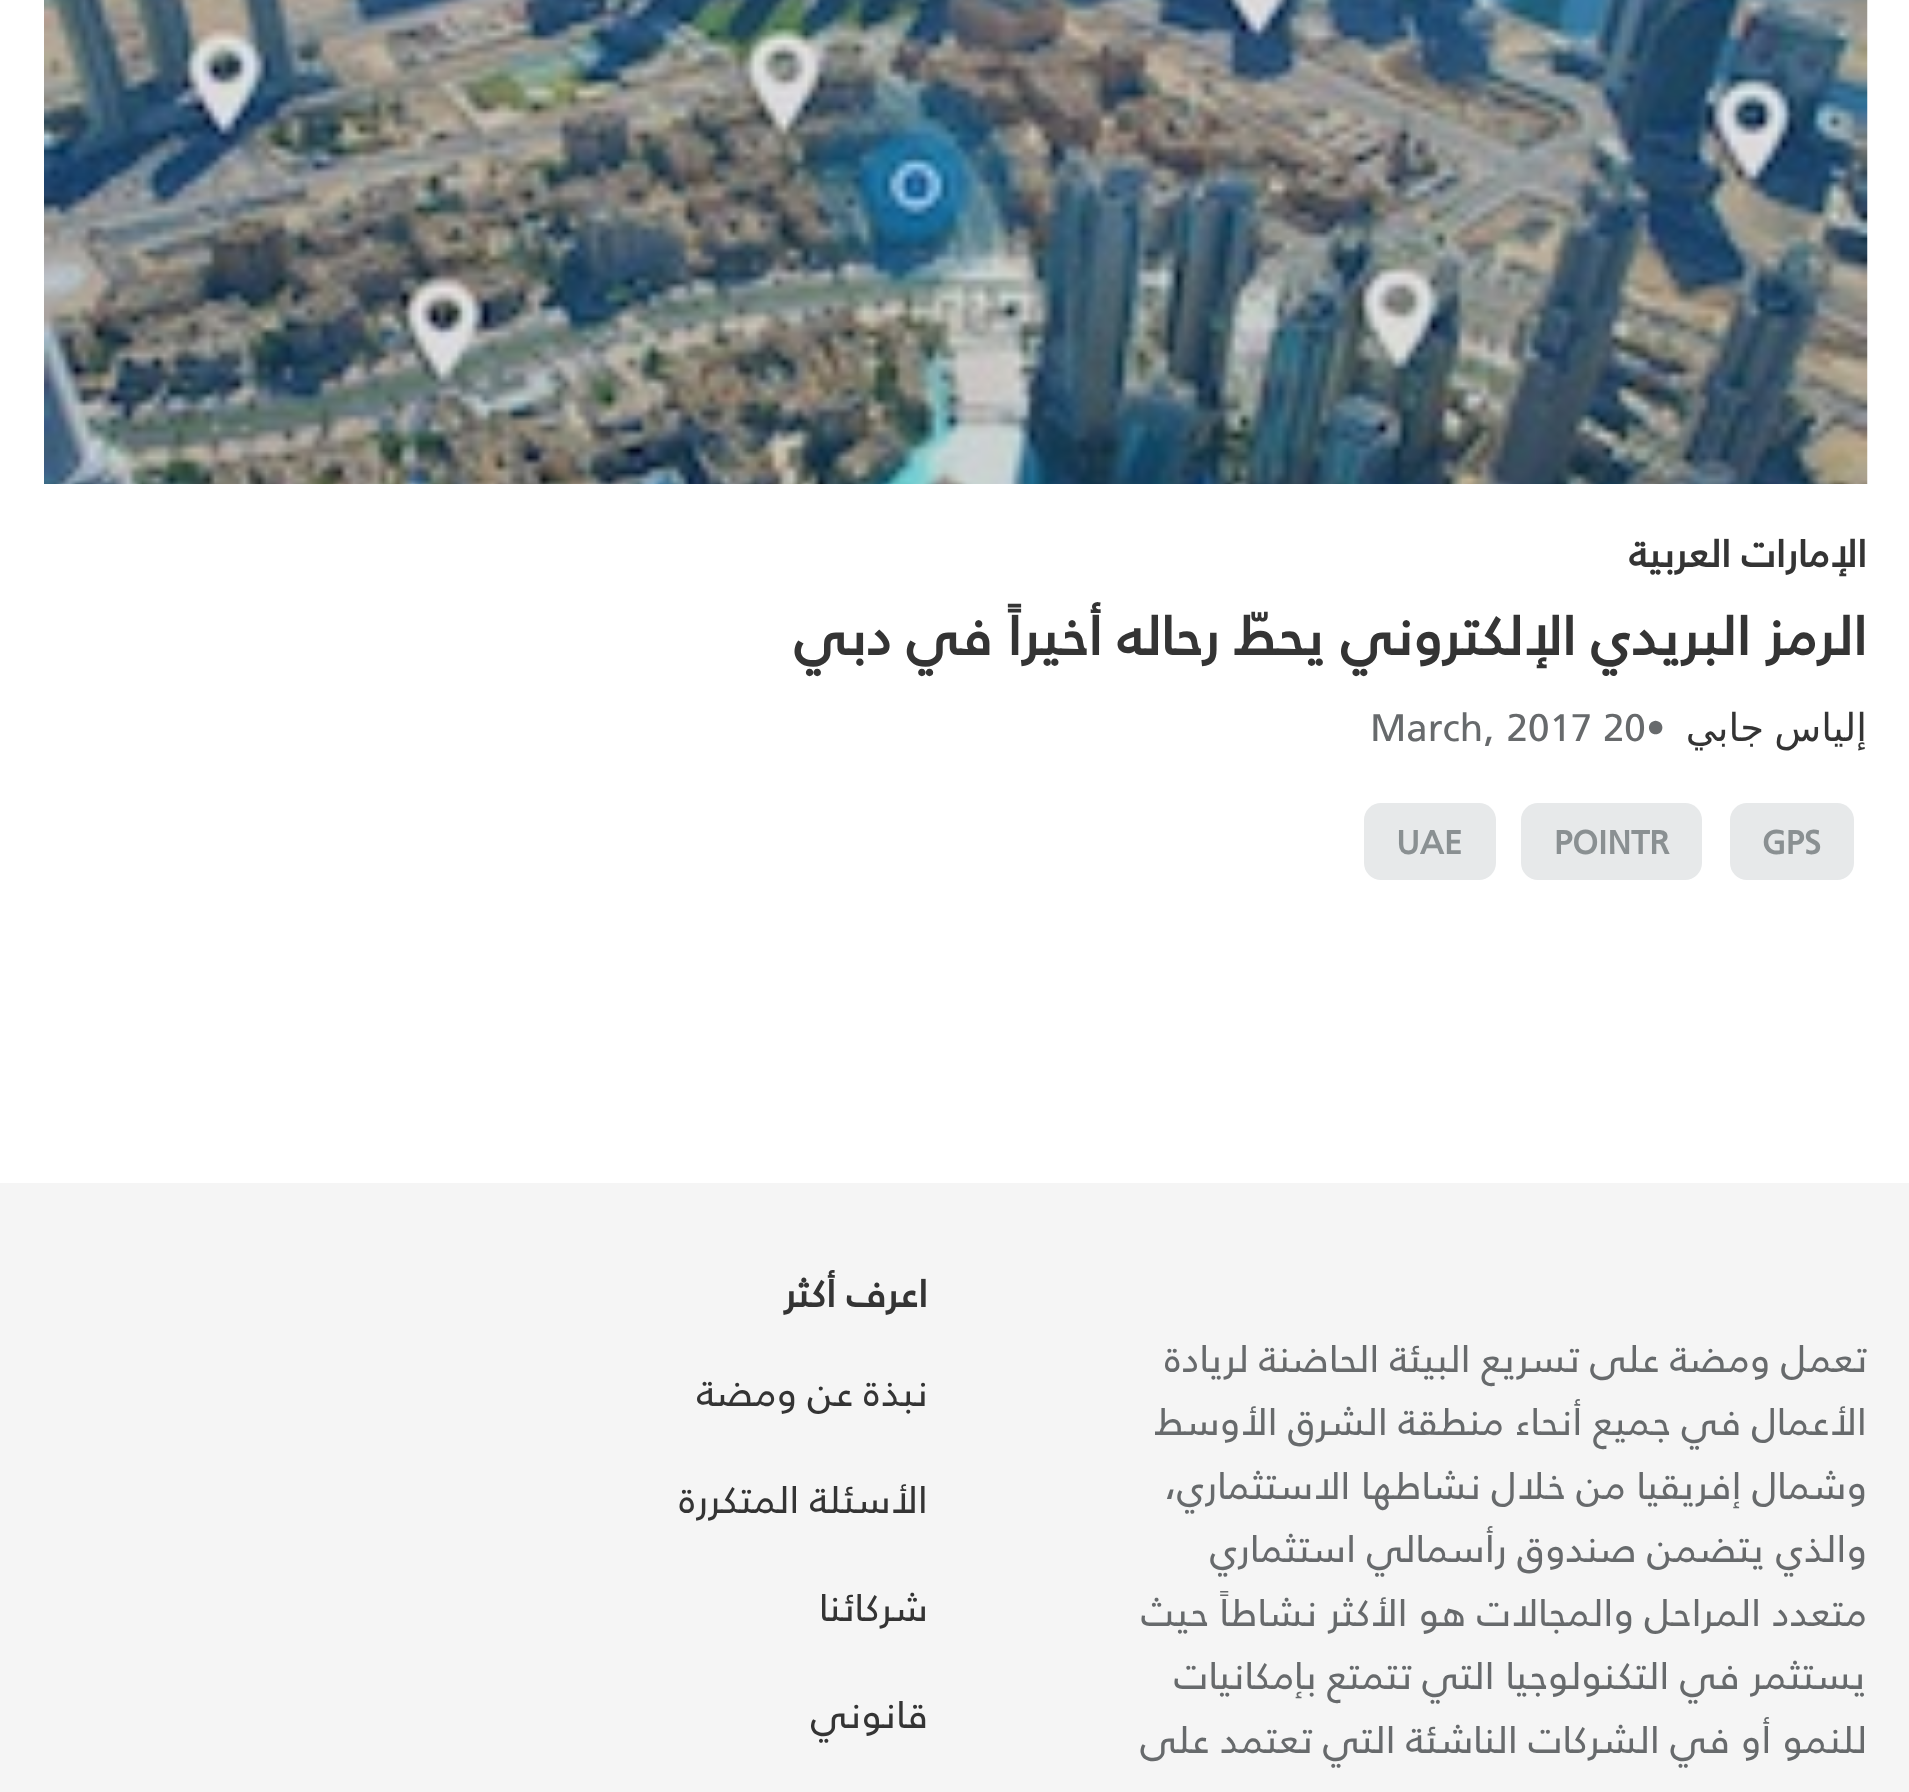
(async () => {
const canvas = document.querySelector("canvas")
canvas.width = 1909
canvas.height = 1792
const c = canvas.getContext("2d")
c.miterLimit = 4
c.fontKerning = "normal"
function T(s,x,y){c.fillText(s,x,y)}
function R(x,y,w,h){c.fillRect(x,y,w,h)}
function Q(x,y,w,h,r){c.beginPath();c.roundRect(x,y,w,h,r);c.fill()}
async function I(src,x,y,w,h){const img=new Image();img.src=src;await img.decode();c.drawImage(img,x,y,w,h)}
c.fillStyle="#fff"
R(0,0,1909,1792)
await I("1.png",44,0,1824,484)
c.direction="rtl"
c.font="bold 38.5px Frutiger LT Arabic"
c.fillStyle="#343434"
T("الإمارات العربية",1867,567)
c.font="bold 55px Frutiger LT Arabic"
T("الرمز البريدي الإلكتروني يحطّ رحاله أخيراً في دبي",1867,655)
c.wordSpacing="-2px"
c.font="38.5px DejaVu Sans"
T("إلياس جابي",1867,741)
c.wordSpacing="0px"
c.direction="ltr"
c.font="38.5px Frutiger LT Arabic"
c.fillStyle="#676a6c"
T("•",1646,741)
T("March, 2017 20",1370,741)
c.fillStyle="#e7e9ea"
Q(1730,803,124,77,17)
c.font="bold 33px Frutiger LT Arabic"
c.fillStyle="#8a9092"
T("GPS",1762,854)
c.fillStyle="#e7e9ea"
Q(1521,803,181,77,17)
c.fillStyle="#8a9092"
T("POINTR",1554,854)
c.fillStyle="#e7e9ea"
Q(1364,803,132,77,17)
c.fillStyle="#8a9092"
T("UAE",1396,854)
c.fillStyle="#f5f5f5"
R(0,1183,1909,609)
c.direction="rtl"
c.font="38.5px Frutiger LT Arabic"
c.fillStyle="#676a6c"
T("تعمل ومضة على تسريع البيئة الحاضنة لريادة",1867,1372)
T("الأعمال في جميع أنحاء منطقة الشرق الأوسط",1867,1435)
T("وشمال إفريقيا من خلال نشاطها الاستثماري،",1867,1499)
T("والذي يتضمن صندوق رأسمالي استثماري",1867,1562)
T("متعدد المراحل والمجالات هو الأكثر نشاطاً حيث",1867,1626)
T("يستثمر في التكنولوجيا التي تتمتع بإمكانيات",1867,1689)
T("للنمو أو في الشركات الناشئة التي تعتمد على",1867,1753)
c.font="bold 38.5px Frutiger LT Arabic"
c.fillStyle="#343434"
T("اعرف أكثر",928,1307)
c.font="38.5px Frutiger LT Arabic"
T("نبذة عن ومضة",928,1406)
T("الأسئلة المتكررة",928,1513)
T("شركائنا",928,1621)
T("قانوني",928,1728)
})()
